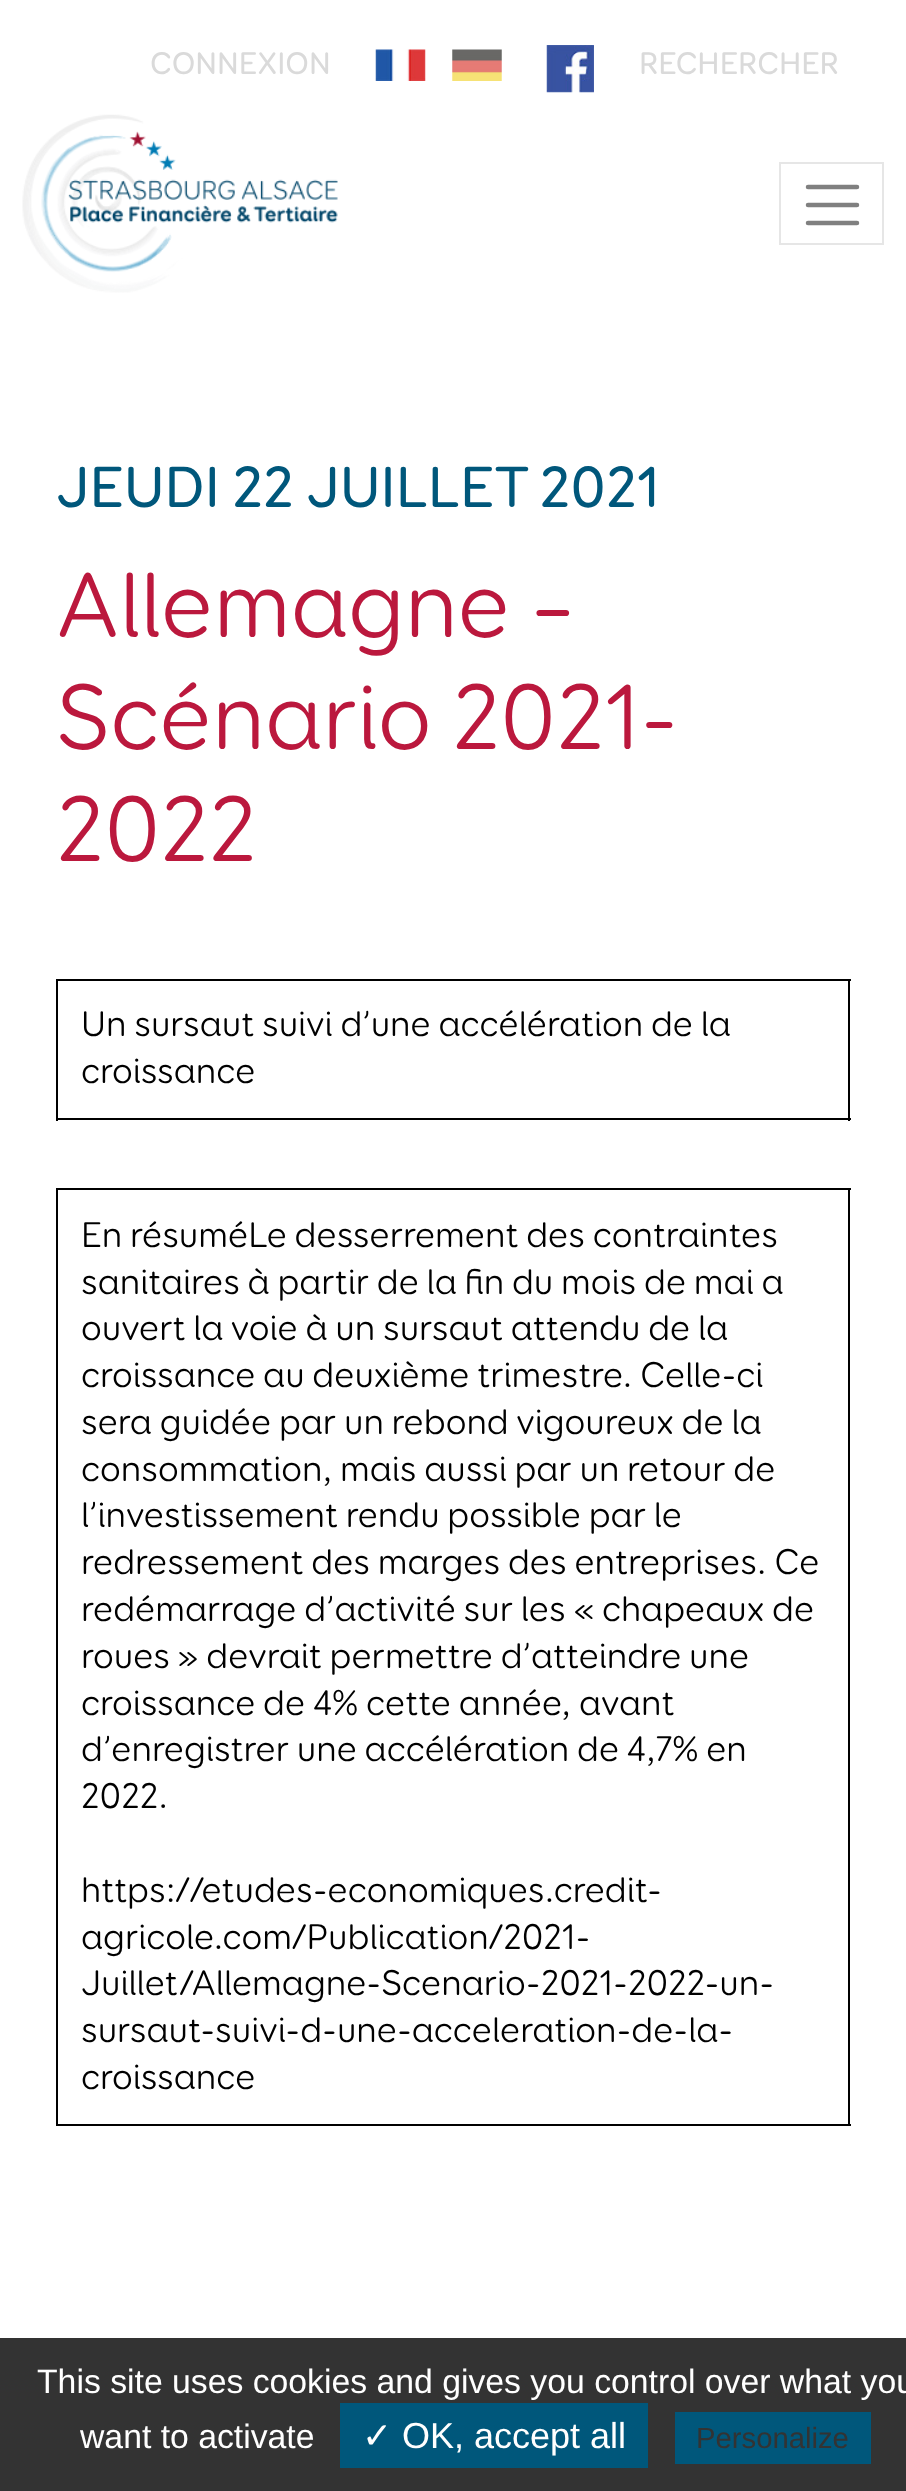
(async () => {
const canvas = document.querySelector("canvas")
canvas.width = 906
canvas.height = 2491
const c = canvas.getContext("2d")
c.miterLimit = 4
c.fontKerning = "normal"
function T(s,x,y){c.fillText(s,x,y)}
function R(x,y,w,h){c.fillRect(x,y,w,h)}
async function I(src,x,y,w,h){const img=new Image();img.src=src;await img.decode();c.drawImage(img,x,y,w,h)}
let path
c.fillStyle="#fff"
R(0,0,906,2491)
c.font="500 31.5px 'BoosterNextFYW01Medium'"
c.fillStyle="#dadada"
T("CONNEXION",150,74)
await I("1.png",375,49,51,32)
await I("2.png",452,49,50,32)
await I("3.png",546,45,48,48)
T("RECHERCHER",639,74)
await I("4.png",22,114,316,179)
c.strokeStyle="#e6e6e6"
c.lineWidth=2
c.strokeRect(780,163,103,81)
path = new Path2D("M808 187h49m-49 18h49m-49 18h49")
c.strokeStyle="#808080"
c.lineWidth=4.5
c.lineCap="round"
c.stroke(path)
c.font="500 58.5px 'BoosterNextFYW01Medium'"
c.fillStyle="#00577b"
T("JEUDI 22 JUILLET 2021",56,507)
c.font="93.5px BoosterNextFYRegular"
c.fillStyle="#bb183d"
T("Allemagne –",56,637)
T("Scénario 2021-",56,749)
T("2022",56,861)
c.fillStyle="#000"
R(56,979,795,2)
R(848,979,2,142)
R(56,1118,795,2)
R(56,979,2,142)
c.font="36px BoosterNextFYRegular"
T("Un sursaut suivi d’une accélération de la",81,1036)
T("croissance",81,1083)
R(56,1188,795,2)
R(848,1188,2,938)
R(56,2124,795,2)
R(56,1188,2,938)
T("En résuméLe desserrement des contraintes",81,1247)
T("sanitaires à partir de la fin du mois de mai a",81,1294)
T("ouvert la voie à un sursaut attendu de la",81,1340)
T("croissance au deuxième trimestre. Celle-ci",81,1387)
T("sera guidée par un rebond vigoureux de la",81,1434)
T("consommation, mais aussi par un retour de",81,1481)
T("l’investissement rendu possible par le",81,1527)
T("redressement des marges des entreprises. Ce",81,1574)
T("redémarrage d’activité sur les « chapeaux de",81,1621)
T("roues » devrait permettre d’atteindre une",81,1668)
T("croissance de 4% cette année, avant",81,1715)
T("d’enregistrer une accélération de 4,7% en",81,1761)
T("2022.",81,1808)
T("https://etudes-economiques.credit-",81,1902)
T("agricole.com/Publication/2021-",81,1949)
T("Juillet/Allemagne-Scenario-2021-2022-un-",81,1995)
T("sursaut-suivi-d-une-acceleration-de-la-",81,2042)
T("croissance",81,2089)
c.fillStyle="#333"
R(0,2338,906,153)
c.font="33.75px Liberation Sans"
c.fillStyle="#fff"
T("This site uses cookies and gives you control over what you",37,2393)
T("want to activate",80,2448)
c.fillStyle="#00577b"
R(340,2403,308,65)
c.font="36px DejaVu Sans"
c.fillStyle="#fff"
T("✓",362,2448)
c.font="36px Liberation Sans"
T("OK, accept all",402,2448)
c.fillStyle="#00577b"
R(675,2412,196,52)
c.font="29.25px Liberation Sans"
c.fillStyle="#333"
T("Personalize",696,2448)
})()
